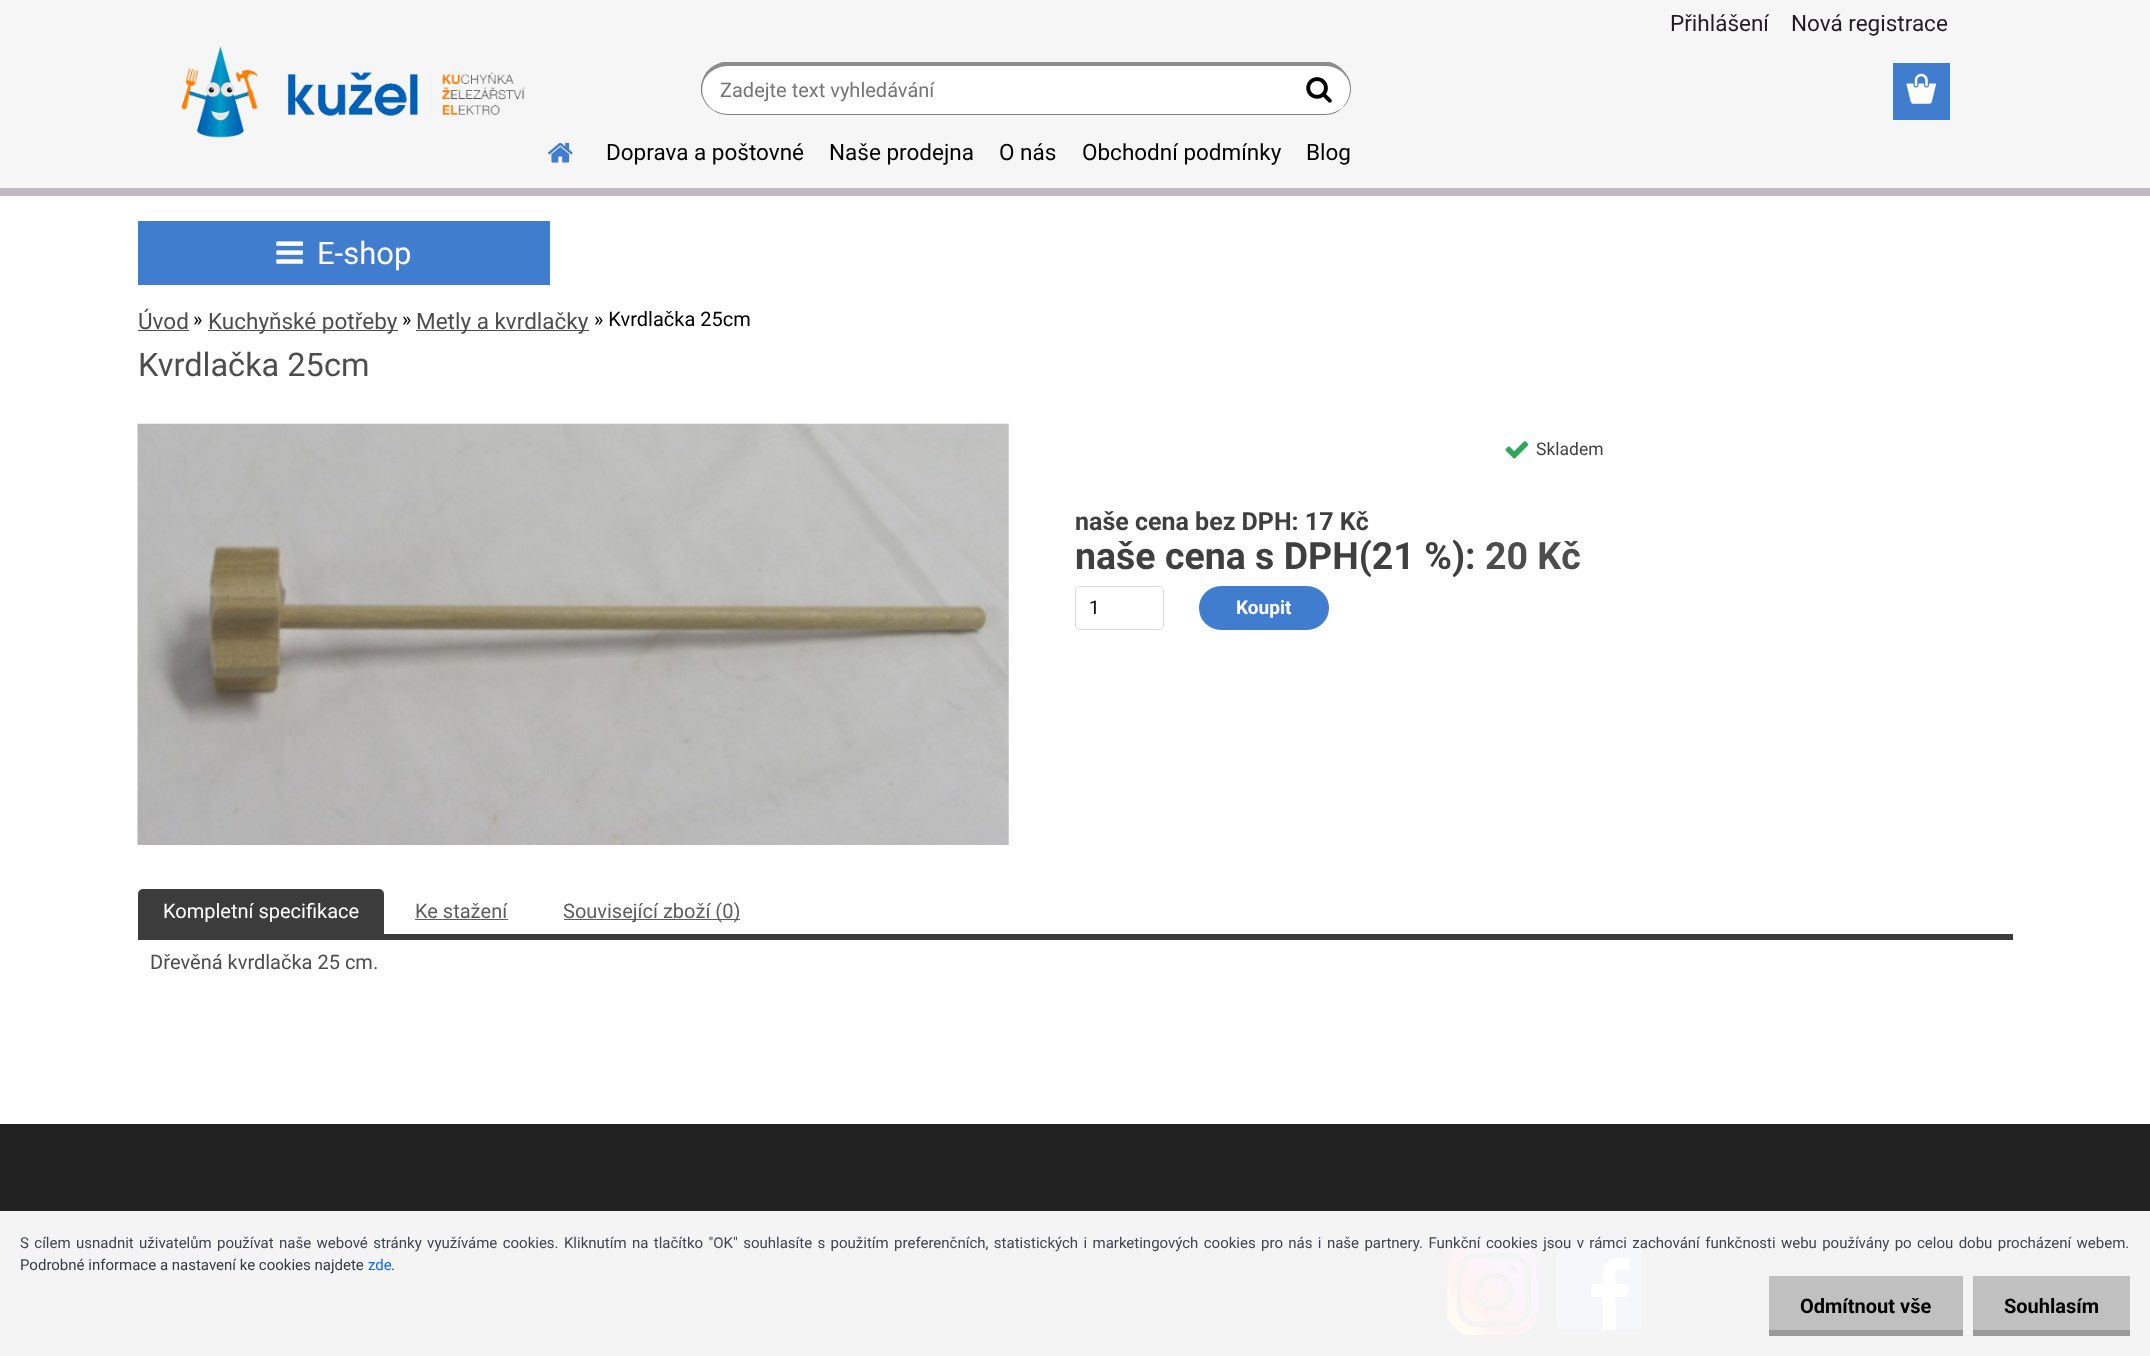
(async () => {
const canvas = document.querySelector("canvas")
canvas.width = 2150
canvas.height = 1356
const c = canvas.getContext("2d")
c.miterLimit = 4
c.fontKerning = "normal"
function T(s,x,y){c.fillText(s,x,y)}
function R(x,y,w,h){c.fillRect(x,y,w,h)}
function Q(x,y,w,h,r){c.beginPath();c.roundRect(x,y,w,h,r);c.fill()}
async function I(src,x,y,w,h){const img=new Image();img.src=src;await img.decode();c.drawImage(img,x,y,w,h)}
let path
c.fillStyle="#fff"
R(0,0,2150,1356)
c.fillStyle="#f6f6f6"
R(0,0,2150,188)
c.font="22.5px Roboto"
c.fillStyle="#231c24"
T("Přihlášení",1670,31)
T("Nová registrace",1791,31)
c.fillStyle="#407dcf"
R(1893,63,57,57)
await I("1.png",1906,73,30,31)
R(138,221,412,64)
await I("2.png",276,241,28,23)
c.font="31px Roboto"
c.fillStyle="#fff"
T("E-shop",317,264)
c.font="22.5px Roboto"
c.fillStyle="#4d4d4d"
T("Úvod",138,329)
R(138,330,51,1)
c.font="20px Roboto"
c.fillStyle="#000"
T("»",193,326)
c.fillStyle="#4d4d4d"
R(208,330,190,1)
c.font="22.5px Roboto"
T("Kuchyňské potřeby",208,329)
c.font="20px Roboto"
c.fillStyle="#000"
T("»",402,326)
c.fillStyle="#4d4d4d"
R(416,330,173,1)
c.font="22.5px Roboto"
T("Metly a kvrdlačky",416,329)
c.font="20px Roboto"
c.fillStyle="#000"
T("» Kvrdlačka 25cm",594,326)
c.font="32.5px Roboto"
c.fillStyle="#4d4d4d"
T("Kvrdlačka 25cm",138,376)
await I("3.png",137,423,872,422)
await I("4.png",1505,441,24,18)
c.font="17.5px Roboto"
c.fillStyle="#3f3f3f"
T("Skladem",1536,455)
c.font="bold 25px Roboto"
T("naše cena bez DPH: 17 Kč",1075,530)
c.font="bold 37.5px Roboto"
T("naše cena s DPH(21 %):",1075,569)
c.fillStyle="#4d4d4d"
T("20 Kč",1485,569)
c.beginPath()
c.roundRect(1075.5,586.5,88,43,4.5)
c.strokeStyle="#d9d9d9"
c.stroke()
c.font="19px Roboto"
c.fillStyle="#000"
T("1",1089,614)
c.fillStyle="#407dcf"
Q(1199,586,130,44,22)
c.font="bold 19px Roboto"
c.fillStyle="#fff"
T("Koupit",1236,614)
c.fillStyle="#3c3c3c"
R(138,934,1875,6)
c.beginPath()
c.roundRect(138,889,246,45,[5,5,0,0])
c.fill()
c.font="20px Roboto"
c.fillStyle="#fff"
T("Kompletní specifikace",163,918)
c.fillStyle="#5d5d5d"
T("Ke stažení",415,918)
R(415,919,93,1)
R(564,919,176,1)
T("Související zboží (0)",563,918)
c.fillStyle="#4d4d4d"
T("Dřevěná kvrdlačka 25 cm.",150,969)
c.fillStyle="#bfbac1"
R(0,188,2150,8)
await I("5.png",181,46,344,92)
c.fillStyle="#fff"
c.beginPath()
c.roundRect(701,63,593,52,[26,0,0,26])
c.fill()
c.fillStyle="#8c8c8c"
path = new Path2D("M728 66c-9 0-17 4-22 11l-1-3c4-6 10-10 18-12h571v4z")
c.fill(path)
c.fillStyle="#7f7f7f"
path = new Path2D("M1294 115v-1h-566c-7 0-14-3-18-7h-1c5 5 12 8 19 8z")
c.fill(path)
c.fillStyle="#00000080"
path = new Path2D("M701 85.5c1-4 2-8 4-11l1 2c-6.5 9.5-4.5 22.5 3.5 30l-.5 1c-4-4-7-9.5-8-15z")
c.fill(path)
c.fillStyle="#757575"
T("Zadejte text vyhledávání",720,97)
c.fillStyle="#fff"
c.beginPath()
c.roundRect(1294,63,57,52,[0,26,26,0])
c.fill()
c.fillStyle="#8c8c8c"
path = new Path2D("M1294 66v-4h36c7 2 13 7 17 13l-1 2c-4-7-12-11-21-11z")
c.fill(path)
c.fillStyle="#00000080"
path = new Path2D("M1343 106.5c7.5-7.5 9.5-20.5 3.5-29.5l.5-2c6.5 10 5 23.5-3.5 32zm-49 8.5h31c7 0 14-3 18-8c-5 4-11 7-18 7h-31z")
c.fill(path)
await I("6.png",1306,77,26,26)
await I("7.png",547,142,26,21)
c.font="22.5px Roboto"
c.fillStyle="#000"
T("Doprava a poštovné",606,160)
T("Naše prodejna",829,160)
T("O nás",999,160)
T("Obchodní podmínky",1082,160)
T("Blog",1306,160)
c.fillStyle="#222"
R(0,1124,2150,87)
c.fillStyle="#f4f4f4"
R(0,1211,2150,145)
await I("8.png",1447,1243,92,92)
await I("9.png",1556,1244,87,86)
c.wordSpacing="1.65px"
c.font="15px Roboto"
c.fillStyle="#3f4550"
T("S cílem usnadnit uživatelům používat naše webové stránky využíváme cookies. Kliknutím na tlačítko \"OK\" souhlasíte s použitím preferenčních, statistických i marketingových cookies pro nás i naše partnery. Funkční cookies jsou v rámci zachování funkčnosti webu používány po celou dobu procházení webem.",20,1248)
c.wordSpacing="0px"
c.fillStyle="#343b45"
T("Podrobné informace a nastavení ke cookies najdete",20,1270)
c.fillStyle="#0e6af2"
T("zde",368,1270)
c.fillStyle="#343b45"
T(".",391,1270)
c.fillStyle="#c0c0c0"
R(1769,1276,194,54)
c.fillStyle="#9a9a9a"
R(1769,1330,194,6)
c.font="bold 20px Roboto"
c.fillStyle="#000"
T("Odmítnout vše",1800,1313)
c.fillStyle="#c0c0c0"
R(1973,1276,157,54)
c.fillStyle="#9a9a9a"
R(1973,1330,157,6)
c.fillStyle="#000"
T("Souhlasím",2004,1313)
})()
